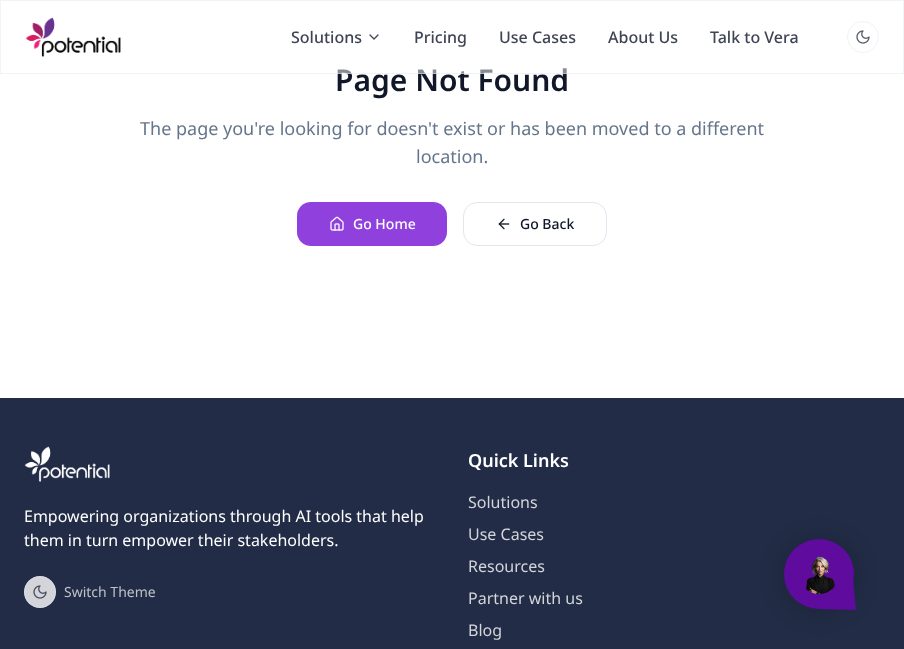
(async () => {
const canvas = document.querySelector("canvas")
canvas.width = 904
canvas.height = 649
const c = canvas.getContext("2d")
c.miterLimit = 4
c.fontKerning = "normal"
function T(s,x,y){c.fillText(s,x,y)}
function R(x,y,w,h){c.fillRect(x,y,w,h)}
function Q(x,y,w,h,r){c.beginPath();c.roundRect(x,y,w,h,r);c.fill()}
async function I(src,x,y,w,h){const img=new Image();img.src=src;await img.decode();c.drawImage(img,x,y,w,h)}
let path
c.fillStyle="#fff"
R(0,0,904,649)
c.font="600 30px Noto Sans"
c.fillStyle="#0f1729"
T("Page Not Found",335,91)
c.fillStyle="#ffffff80"
R(337,68,230,6)
c.strokeStyle="#e1e7ef80"
c.strokeRect(.5,.5,903,73)
await I("1.png",25,17,96,40)
c.font="500 16px Noto Sans"
c.fillStyle="#3e4454"
T("Solutions",291,43)
path = new Path2D("M370 35l4 4l4-4")
c.strokeStyle="#3f4554"
c.lineWidth=1.3
c.lineCap="round"
c.lineJoin="round"
c.stroke(path)
T("Pricing",414,43)
T("Use Cases",499,43)
T("About Us",608,43)
T("Talk to Vera",710,43)
c.beginPath()
c.arc(863,37,15.5,0,7)
c.strokeStyle="#f0f3f7"
c.lineWidth=1
c.stroke()
await I("2.png",856,30,14,14)
c.font="18px Noto Sans"
c.fillStyle="#65758b"
T("The page you're looking for doesn't exist or has been moved to a different",140,135)
T("location.",416,163)
c.fillStyle="#8f40dd"
Q(297,202,150,44,14)
await I("3.png",330,216,14,15)
c.font="500 14px Noto Sans"
c.fillStyle="#fff"
T("Go Home",353,229)
c.beginPath()
c.roundRect(463.5,202.5,143,43,13.5)
c.strokeStyle="#e1e7ef"
c.lineJoin="miter"
c.stroke()
await I("4.png",498,218,12,12)
c.fillStyle="#0f1729"
T("Go Back",520,229)
c.fillStyle="#222c46"
R(0,398,904,251)
await I("5.png",24,446,86,36)
c.font="16px Noto Sans"
c.fillStyle="#fff"
T("Empowering organizations through AI tools that help",24,522)
T("them in turn empower their stakeholders.",24,546)
c.fillStyle="#d3d5da"
c.beginPath()
c.arc(40,592,16,0,7)
c.fill()
c.beginPath()
c.arc(40,592,15.5,0,7)
c.strokeStyle="#e1e7ef80"
c.stroke()
await I("6.png",33,585,14,14)
c.font="14px Noto Sans"
c.fillStyle="#bdc0c8"
T("Switch Theme",64,597)
c.font="600 18px Noto Sans"
c.fillStyle="#fff"
T("Quick Links",468,467)
c.font="16px Noto Sans"
c.fillStyle="#d3d5da"
T("Solutions",468,508)
T("Use Cases",468,540)
T("Resources",468,572)
T("Partner with us",468,604)
T("Blog",468,636)
c.fillStyle="#00000033"
c.filter="blur(12px)"
c.beginPath()
c.roundRect(784,541,70,70,35)
c.fill()
c.filter="none"
c.fillStyle="#5e0b9e"
c.beginPath()
c.arc(819,574,35,0,7)
c.fill()
await I("7.png",806,556,29,38)
path = new Path2D("M818 609l34-41l4 42z")
c.fill(path)
})()
